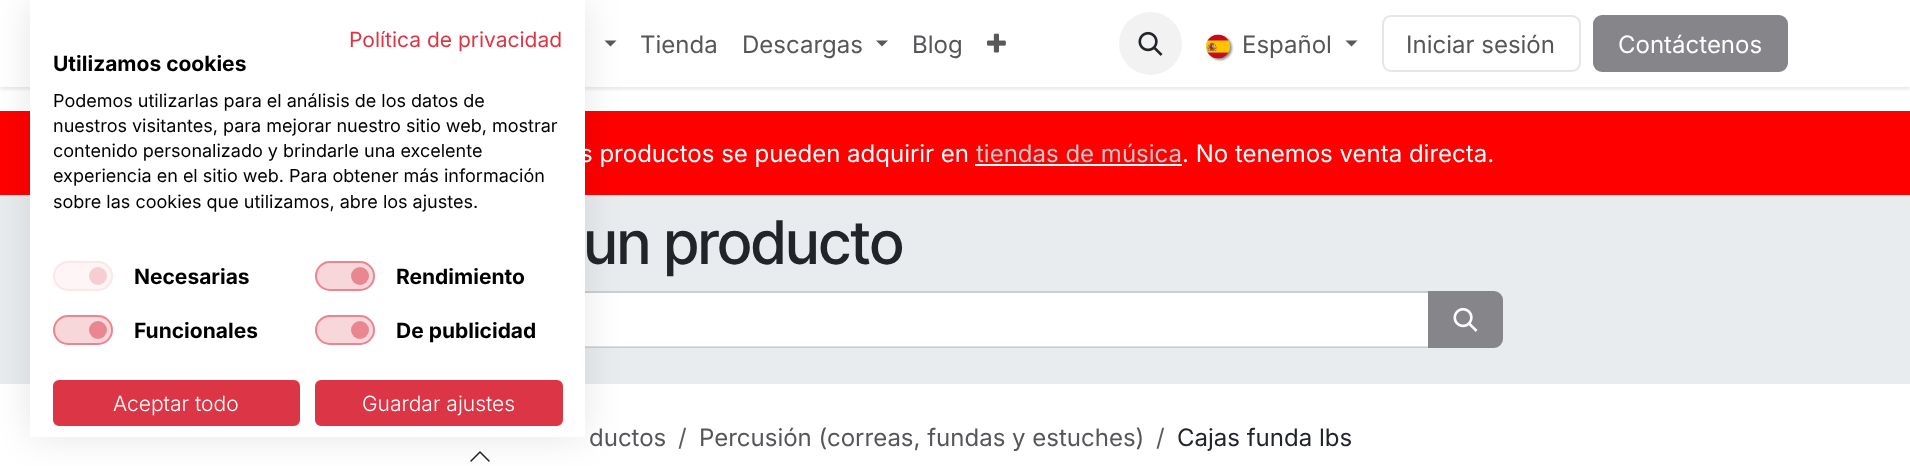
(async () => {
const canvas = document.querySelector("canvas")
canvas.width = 1910
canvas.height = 466
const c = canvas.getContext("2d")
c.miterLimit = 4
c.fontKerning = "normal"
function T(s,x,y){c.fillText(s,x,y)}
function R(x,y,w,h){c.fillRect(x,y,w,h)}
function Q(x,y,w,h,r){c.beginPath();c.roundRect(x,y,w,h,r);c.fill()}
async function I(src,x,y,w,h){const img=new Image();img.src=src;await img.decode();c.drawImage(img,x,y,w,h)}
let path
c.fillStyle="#fff"
R(0,0,1910,466)
c.save()
c.beginPath()
c.rect(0,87,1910,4)
c.clip()
c.fillStyle="#0000001a"
c.filter="blur(2px)"
c.beginPath()
c.rect(0,2,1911,87)
c.fill()
c.filter="none"
c.restore()
c.fillStyle="#595959"
path = new Path2D("M604.5 40.5h12l-6 6z")
c.fill(path)
c.fillStyle="#f00"
R(0,111,1910,84)
c.fillStyle="#e9ecef"
R(0,195,1910,189)
c.fillStyle="#fff"
R(585,293,843,54)
c.strokeStyle="#21252926"
c.lineWidth=2
c.strokeRect(409,292,1020,55)
path = new Path2D("M489 461l-9-9l-9 9")
c.strokeStyle="#212529"
c.lineWidth=1.5
c.lineCap="round"
c.lineJoin="round"
c.stroke(path)
c.fillStyle="#0000001a"
c.filter="blur(18px)"
c.beginPath()
c.rect(30,0,555,437)
c.fill()
c.filter="none"
c.fillStyle="#fff"
R(30,0,555,437)
c.font="21px Inter"
c.fillStyle="#dc3545"
T("Política de privacidad",349,47)
c.font="bold 21px Inter"
c.fillStyle="#000"
T("Utilizamos cookies",53,71)
c.font="18px Inter"
T("Podemos utilizarlas para el análisis de los datos de",53,107)
T("nuestros visitantes, para mejorar nuestro sitio web, mostrar",53,132)
T("contenido personalizado y brindarle una excelente",53,157)
T("experiencia en el sitio web. Para obtener más información",53,182)
T("sobre las cookies que utilizamos, abre los ajustes.",53,208)
c.fillStyle="#fdf5f6"
Q(53,261,60,30,15)
c.fillStyle="#f6cdd1"
c.beginPath()
c.arc(98,276,9,0,7)
c.fill()
c.beginPath()
c.roundRect(54,262,58,28,14)
c.strokeStyle="#fbe6e8"
c.lineWidth=2
c.lineJoin="miter"
c.stroke()
c.font="bold 21px Inter"
c.fillStyle="#000"
T("Necesarias",134,284)
c.fillStyle="#f8d7da"
Q(315,261,60,30,15)
c.fillStyle="#ea8690"
c.beginPath()
c.arc(360,276,9,0,7)
c.fill()
c.beginPath()
c.roundRect(316,262,58,28,14)
c.strokeStyle="#dc354580"
c.stroke()
c.fillStyle="#000"
T("Rendimiento",396,284)
c.fillStyle="#f8d7da"
Q(53,315,60,30,15)
c.fillStyle="#ea8690"
c.beginPath()
c.arc(98,330,9,0,7)
c.fill()
c.beginPath()
c.roundRect(54,316,58,28,14)
c.stroke()
c.fillStyle="#000"
T("Funcionales",134,338)
c.fillStyle="#f8d7da"
Q(315,315,60,30,15)
c.fillStyle="#ea8690"
c.beginPath()
c.arc(360,330,9,0,7)
c.fill()
c.beginPath()
c.roundRect(316,316,58,28,14)
c.stroke()
c.fillStyle="#000"
T("De publicidad",396,338)
c.fillStyle="#dc3545"
c.beginPath()
c.roundRect(54,381,245,44,5)
c.fill()
c.strokeStyle="#dc3545"
c.stroke()
c.font="300 21px Inter"
c.fillStyle="#fff"
T("Aceptar todo",113,411)
c.fillStyle="#dc3545"
c.beginPath()
c.roundRect(316,381,246,44,5)
c.fill()
c.stroke()
c.fillStyle="#fff"
T("Guardar ajustes",362,411)
c.font="24px Inter"
c.fillStyle="#565559"
T("Tienda",640,53)
T("Descargas",742,53)
c.fillStyle="#595959"
path = new Path2D("M876 40.5h12l-6 6z")
c.fill(path)
c.fillStyle="#565559"
T("Blog",912,53)
await I("1.png",987,33,19,20)
c.fillStyle="#f2f2f2"
c.beginPath()
c.arc(1150.5,43.5,31.5,0,7)
c.fill()
await I("2.png",1138,31,25,25)
c.fillStyle="#0000006e"
c.filter="blur(1px)"
c.beginPath()
c.roundRect(1208,36,24,24,12)
c.fill()
c.filter="none"
await I("3.png",1206,34,24,25)
c.fillStyle="#565559"
T("Español",1242,53)
c.fillStyle="#595959"
path = new Path2D("M1345.5 40.5h12l-6 6z")
c.fill(path)
c.beginPath()
c.roundRect(1383,16,197,55,8)
c.strokeStyle="#e6e6e6"
c.stroke()
c.fillStyle="#565559"
T("Iniciar sesión",1406,53)
c.fillStyle="#86858a"
c.beginPath()
c.roundRect(1594,16,193,55,8)
c.fill()
c.strokeStyle="#86858a"
c.stroke()
c.fillStyle="#fff"
T("Contáctenos",1618,53)
T("s productos se pueden adquirir en",580,162)
c.fillStyle="#c7c6c8"
T("tiendas de música",976,162)
c.fillStyle="#fff"
R(975,164,207,2)
T(". No tenemos venta directa.",1182,162)
c.font="500 60px Inter Tight"
c.fillStyle="#212529"
T("un producto",584,264)
c.fillStyle="#86858a"
c.beginPath()
c.roundRect(1429,292,73,55,[0,8,8,0])
c.fill()
c.stroke()
await I("4.png",1453,307,25,25)
c.font="24px Inter"
c.fillStyle="#565559"
T("ductos",589,446)
c.fillStyle="#595c5f"
T("/",678,446)
c.fillStyle="#565559"
T("Percusión (correas, fundas y estuches)",699,446)
c.fillStyle="#595c5f"
T("/",1156,446)
c.fillStyle="#212529"
T("Cajas funda lbs",1177,446)
})()
